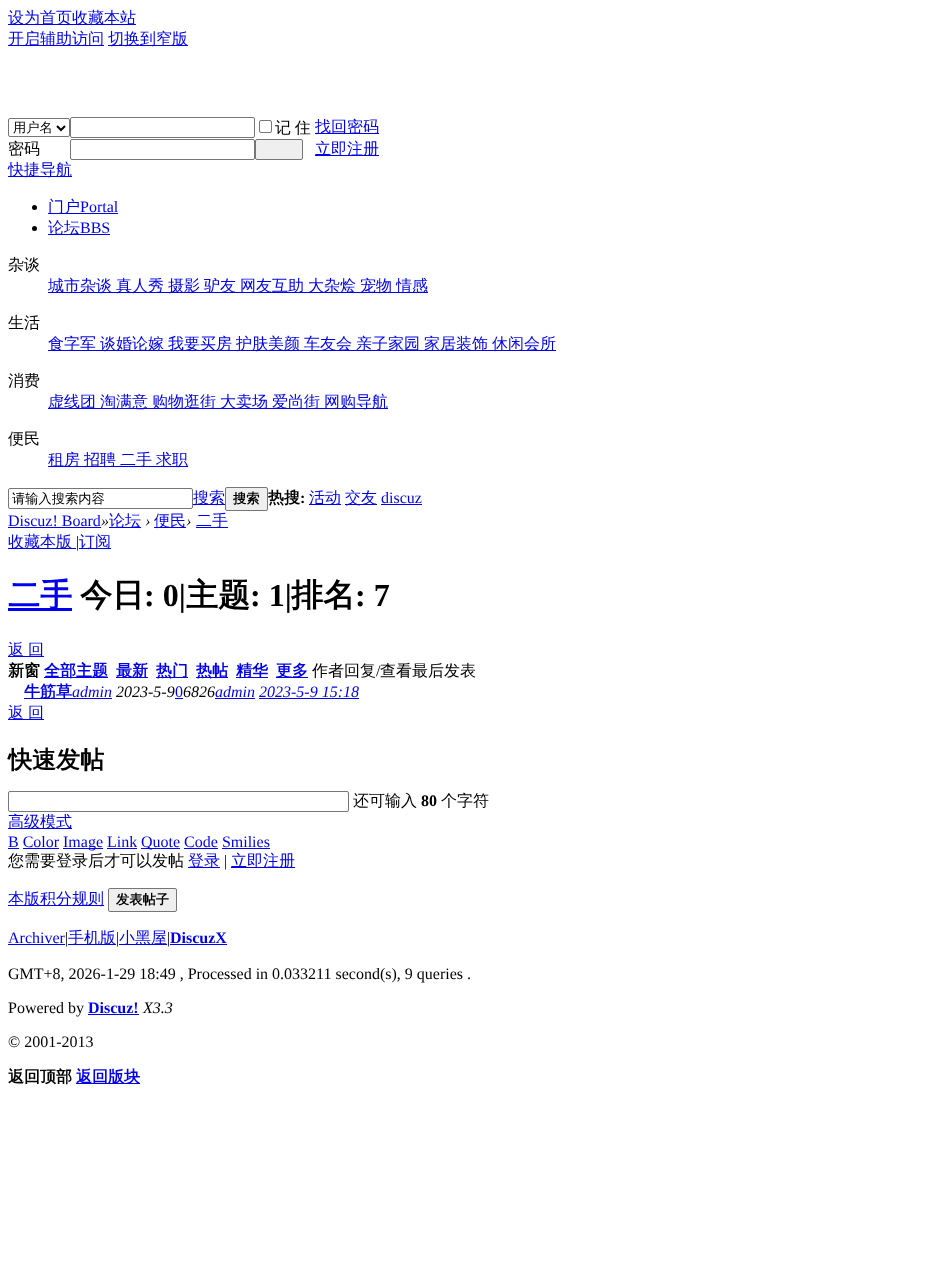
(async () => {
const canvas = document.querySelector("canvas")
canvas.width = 932
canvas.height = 1276
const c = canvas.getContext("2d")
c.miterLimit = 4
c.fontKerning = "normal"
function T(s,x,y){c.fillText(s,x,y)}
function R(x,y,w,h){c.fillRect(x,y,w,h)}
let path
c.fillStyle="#fff"
R(0,0,932,1276)
c.fillStyle="#00e"
R(8,24,128,1)
c.font="500 16px WenQuanYi Zen Hei"
T("设为首页收藏本站",8,23)
R(8,45,96,1)
T("开启辅助访问",8,44)
R(108,45,80,1)
T("切换到窄版",108,44)
c.beginPath()
c.roundRect(8.5,118.5,61,18,1.5)
c.strokeStyle="#767676"
c.stroke()
path = new Path2D("M57 126l4 4l4-4")
c.strokeStyle="#000"
c.lineWidth=2
c.stroke(path)
c.font="500 13.25px WenQuanYi Zen Hei"
c.fillStyle="#000"
T("用户名",13,132)
c.beginPath()
c.roundRect(70.5,117.5,184,20,1.5)
c.strokeStyle="#767676"
c.lineWidth=1
c.stroke()
c.beginPath()
c.roundRect(259.5,120.5,12,12,1.5)
c.stroke()
c.wordSpacing="-1px"
c.font="500 16px WenQuanYi Zen Hei"
T("记 住",275,133)
c.fillStyle="#00e"
R(315,133,64,1)
c.wordSpacing="0px"
T("找回密码",315,132)
c.fillStyle="#000"
T("密码",8,154)
c.beginPath()
c.roundRect(70.5,139.5,184,20,1.5)
c.stroke()
c.fillStyle="#efefef"
c.beginPath()
c.roundRect(255.5,139.5,47,20,1.5)
c.fill()
c.stroke()
c.fillStyle="#00e"
R(315,155,64,1)
T("立即注册",315,154)
R(8,176,64,1)
T("快捷导航",8,175)
c.fillStyle="#000"
c.beginPath()
c.arc(34.5,207.5,2.5,0,7)
c.fill()
c.fillStyle="#00e"
R(48,213,70,1)
T("门户",48,212)
c.font="16px Liberation Serif"
T("Portal",80,212)
c.fillStyle="#000"
c.beginPath()
c.arc(34.5,228.5,2.5,0,7)
c.fill()
c.fillStyle="#00e"
R(48,234,62,1)
c.font="500 16px WenQuanYi Zen Hei"
T("论坛",48,233)
c.font="16px Liberation Serif"
T("BBS",80,233)
c.font="500 16px WenQuanYi Zen Hei"
c.fillStyle="#000"
T("杂谈",8,270)
c.fillStyle="#00e"
R(48,292,380,1)
T("城市杂谈",48,291)
T("真人秀",116,291)
T("摄影",168,291)
T("驴友",204,291)
T("网友互助",240,291)
T("大杂烩",308,291)
T("宠物",360,291)
T("情感",396,291)
c.fillStyle="#000"
T("生活",8,328)
c.fillStyle="#00e"
R(48,350,508,1)
T("食字军",48,349)
T("谈婚论嫁",100,349)
T("我要买房",168,349)
T("护肤美颜",236,349)
T("车友会",304,349)
T("亲子家园",356,349)
T("家居装饰",424,349)
T("休闲会所",492,349)
c.fillStyle="#000"
T("消费",8,386)
c.fillStyle="#00e"
R(48,408,340,1)
T("虚线团",48,407)
T("淘满意",100,407)
T("购物逛街",152,407)
T("大卖场",220,407)
T("爱尚街",272,407)
T("网购导航",324,407)
c.fillStyle="#000"
T("便民",8,444)
c.fillStyle="#00e"
R(48,466,140,1)
T("租房",48,465)
T("招聘",84,465)
T("二手",120,465)
T("求职",156,465)
c.beginPath()
c.roundRect(8.5,488.5,184,20,1.5)
c.stroke()
c.font="500 13.25px WenQuanYi Zen Hei"
c.fillStyle="#000"
T("请输入搜索内容",12,503)
c.fillStyle="#00e"
R(193,504,32,1)
c.font="500 16px WenQuanYi Zen Hei"
T("搜索",193,503)
c.fillStyle="#efefef"
c.beginPath()
c.roundRect(225.5,487.5,42,23,1.5)
c.fill()
c.stroke()
c.font="bold 13.25px WenQuanYi Zen Hei"
c.fillStyle="#000"
T("搜索",233,503)
c.font="bold 16px WenQuanYi Zen Hei"
T("热搜",268,503)
c.font="bold 16px Liberation Serif"
T(":",300,503)
c.fillStyle="#00e"
R(309,504,32,1)
c.font="500 16px WenQuanYi Zen Hei"
T("活动",309,503)
R(345,504,32,1)
T("交友",345,503)
c.font="16px Liberation Serif"
T("discuz",381,503)
R(381,504,41,1)
T("Discuz! Board",8,526)
R(8,527,93,1)
c.font="italic 16px Liberation Serif"
c.fillStyle="#000"
T("»",101,526)
c.fillStyle="#00e"
R(109,527,32,1)
c.font="500 16px WenQuanYi Zen Hei"
T("论坛",109,526)
c.font="italic 16px Liberation Serif"
c.fillStyle="#000"
T("›",145,526)
c.fillStyle="#00e"
R(154,527,32,1)
c.font="500 16px WenQuanYi Zen Hei"
T("便民",154,526)
c.font="italic 16px Liberation Serif"
c.fillStyle="#000"
T("›",186,526)
c.fillStyle="#00e"
R(196,527,32,1)
c.font="500 16px WenQuanYi Zen Hei"
T("二手",196,526)
R(8,548,68,1)
T("收藏本版",8,547)
c.font="16px Liberation Serif"
c.fillStyle="#000"
T("|",76,547)
c.fillStyle="#00e"
R(79,548,32,1)
c.font="500 16px WenQuanYi Zen Hei"
T("订阅",79,547)
R(8,608,64,3)
c.font="bold 32px WenQuanYi Zen Hei"
T("二手",8,606)
c.fillStyle="#000"
T("今日",80,606)
c.font="bold 32px Liberation Serif"
T(": 0|",144,606)
c.font="bold 32px WenQuanYi Zen Hei"
T("主题",186,606)
c.font="bold 32px Liberation Serif"
T(": 1|",250,606)
c.font="bold 32px WenQuanYi Zen Hei"
T("排名",291,606)
c.font="bold 32px Liberation Serif"
T(": 7",355,606)
c.fillStyle="#00e"
R(8,656,36,1)
c.font="500 16px WenQuanYi Zen Hei"
T("返",8,655)
T("回",28,655)
c.font="bold 16px WenQuanYi Zen Hei"
c.fillStyle="#000"
T("新窗",8,676)
c.fillStyle="#00e"
R(44,677,64,1)
T("全部主题",44,676)
R(116,677,32,1)
T("最新",116,676)
R(156,677,32,1)
T("热门",156,676)
R(196,677,32,1)
T("热帖",196,676)
R(236,677,32,1)
T("精华",236,676)
R(276,677,32,1)
T("更多",276,676)
c.font="500 16px WenQuanYi Zen Hei"
c.fillStyle="#000"
T("作者回复",312,676)
c.font="16px Liberation Serif"
T("/",376,676)
c.font="500 16px WenQuanYi Zen Hei"
T("查看最后发表",380,676)
c.fillStyle="#00e"
R(24,698,88,1)
c.font="bold 16px WenQuanYi Zen Hei"
T("牛筋草",24,697)
c.font="italic 16px Liberation Serif"
T("admin",72,697)
c.fillStyle="#000"
T("2023-5-9",116,697)
c.font="16px Liberation Serif"
c.fillStyle="#00e"
T("0",175,697)
R(175,698,8,1)
c.font="italic 16px Liberation Serif"
c.fillStyle="#000"
T("6826",183,697)
c.fillStyle="#00e"
T("admin 2023-5-9 15:18",215,697)
R(215,698,40,1)
R(259,698,100,1)
R(8,719,36,1)
c.font="500 16px WenQuanYi Zen Hei"
T("返",8,718)
T("回",28,718)
c.font="bold 24px WenQuanYi Zen Hei"
c.fillStyle="#000"
T("快速发帖",8,768)
c.beginPath()
c.roundRect(8.5,791.5,340,20,1.5)
c.stroke()
c.font="500 16px WenQuanYi Zen Hei"
T("还可输入",353,806)
c.font="bold 16px Liberation Serif"
T("80",421,806)
c.font="500 16px WenQuanYi Zen Hei"
T("个字符",441,806)
c.fillStyle="#00e"
R(8,828,64,1)
T("高级模式",8,827)
c.font="16px Liberation Serif"
T("B Color",8,847)
R(8,848,11,1)
R(63,848,40,1)
T("Image Link",63,847)
R(141,848,39,1)
T("Quote Code Smilies",141,847)
R(23,848,36,1)
R(107,848,30,1)
R(184,848,34,1)
R(222,848,48,1)
c.font="500 16px WenQuanYi Zen Hei"
c.fillStyle="#000"
T("您需要登录后才可以发帖",8,866)
c.fillStyle="#00e"
R(188,867,32,1)
T("登录",188,866)
c.font="16px Liberation Serif"
c.fillStyle="#000"
T("|",224,866)
c.fillStyle="#00e"
R(231,867,64,1)
c.font="500 16px WenQuanYi Zen Hei"
T("立即注册",231,866)
R(8,905,96,1)
T("本版积分规则",8,904)
c.fillStyle="#efefef"
c.beginPath()
c.roundRect(108.5,888.5,68,23,1.5)
c.fill()
c.stroke()
c.font="bold 13.25px WenQuanYi Zen Hei"
c.fillStyle="#000"
T("发表帖子",116,904)
c.font="16px Liberation Serif"
c.fillStyle="#00e"
T("Archiver",8,943)
R(8,944,57,1)
c.fillStyle="#000"
T("|",65,943)
c.fillStyle="#00e"
R(68,944,48,1)
c.font="500 16px WenQuanYi Zen Hei"
T("手机版",68,943)
c.font="16px Liberation Serif"
c.fillStyle="#000"
T("|",116,943)
c.fillStyle="#00e"
R(119,944,48,1)
c.font="500 16px WenQuanYi Zen Hei"
T("小黑屋",119,943)
c.font="16px Liberation Serif"
c.fillStyle="#000"
T("|",167,943)
c.font="bold 16px Liberation Serif"
c.fillStyle="#00e"
T("DiscuzX",170,943)
R(170,944,57,1)
c.font="16px Liberation Serif"
c.fillStyle="#000"
T("GMT+8, 2026-1-29 18:49 , Processed in 0.033211 second(s), 9 queries .",8,979)
T("Powered by",8,1013)
c.font="bold 16px Liberation Serif"
c.fillStyle="#00e"
T("Discuz!",88,1013)
R(88,1014,51,1)
c.font="italic 16px Liberation Serif"
c.fillStyle="#000"
T("X3.3",143,1013)
c.font="16px Liberation Serif"
T("© 2001-2013",8,1047)
c.font="bold 16px WenQuanYi Zen Hei"
T("返回顶部",8,1082)
c.fillStyle="#00e"
R(76,1083,64,1)
T("返回版块",76,1082)
})()
